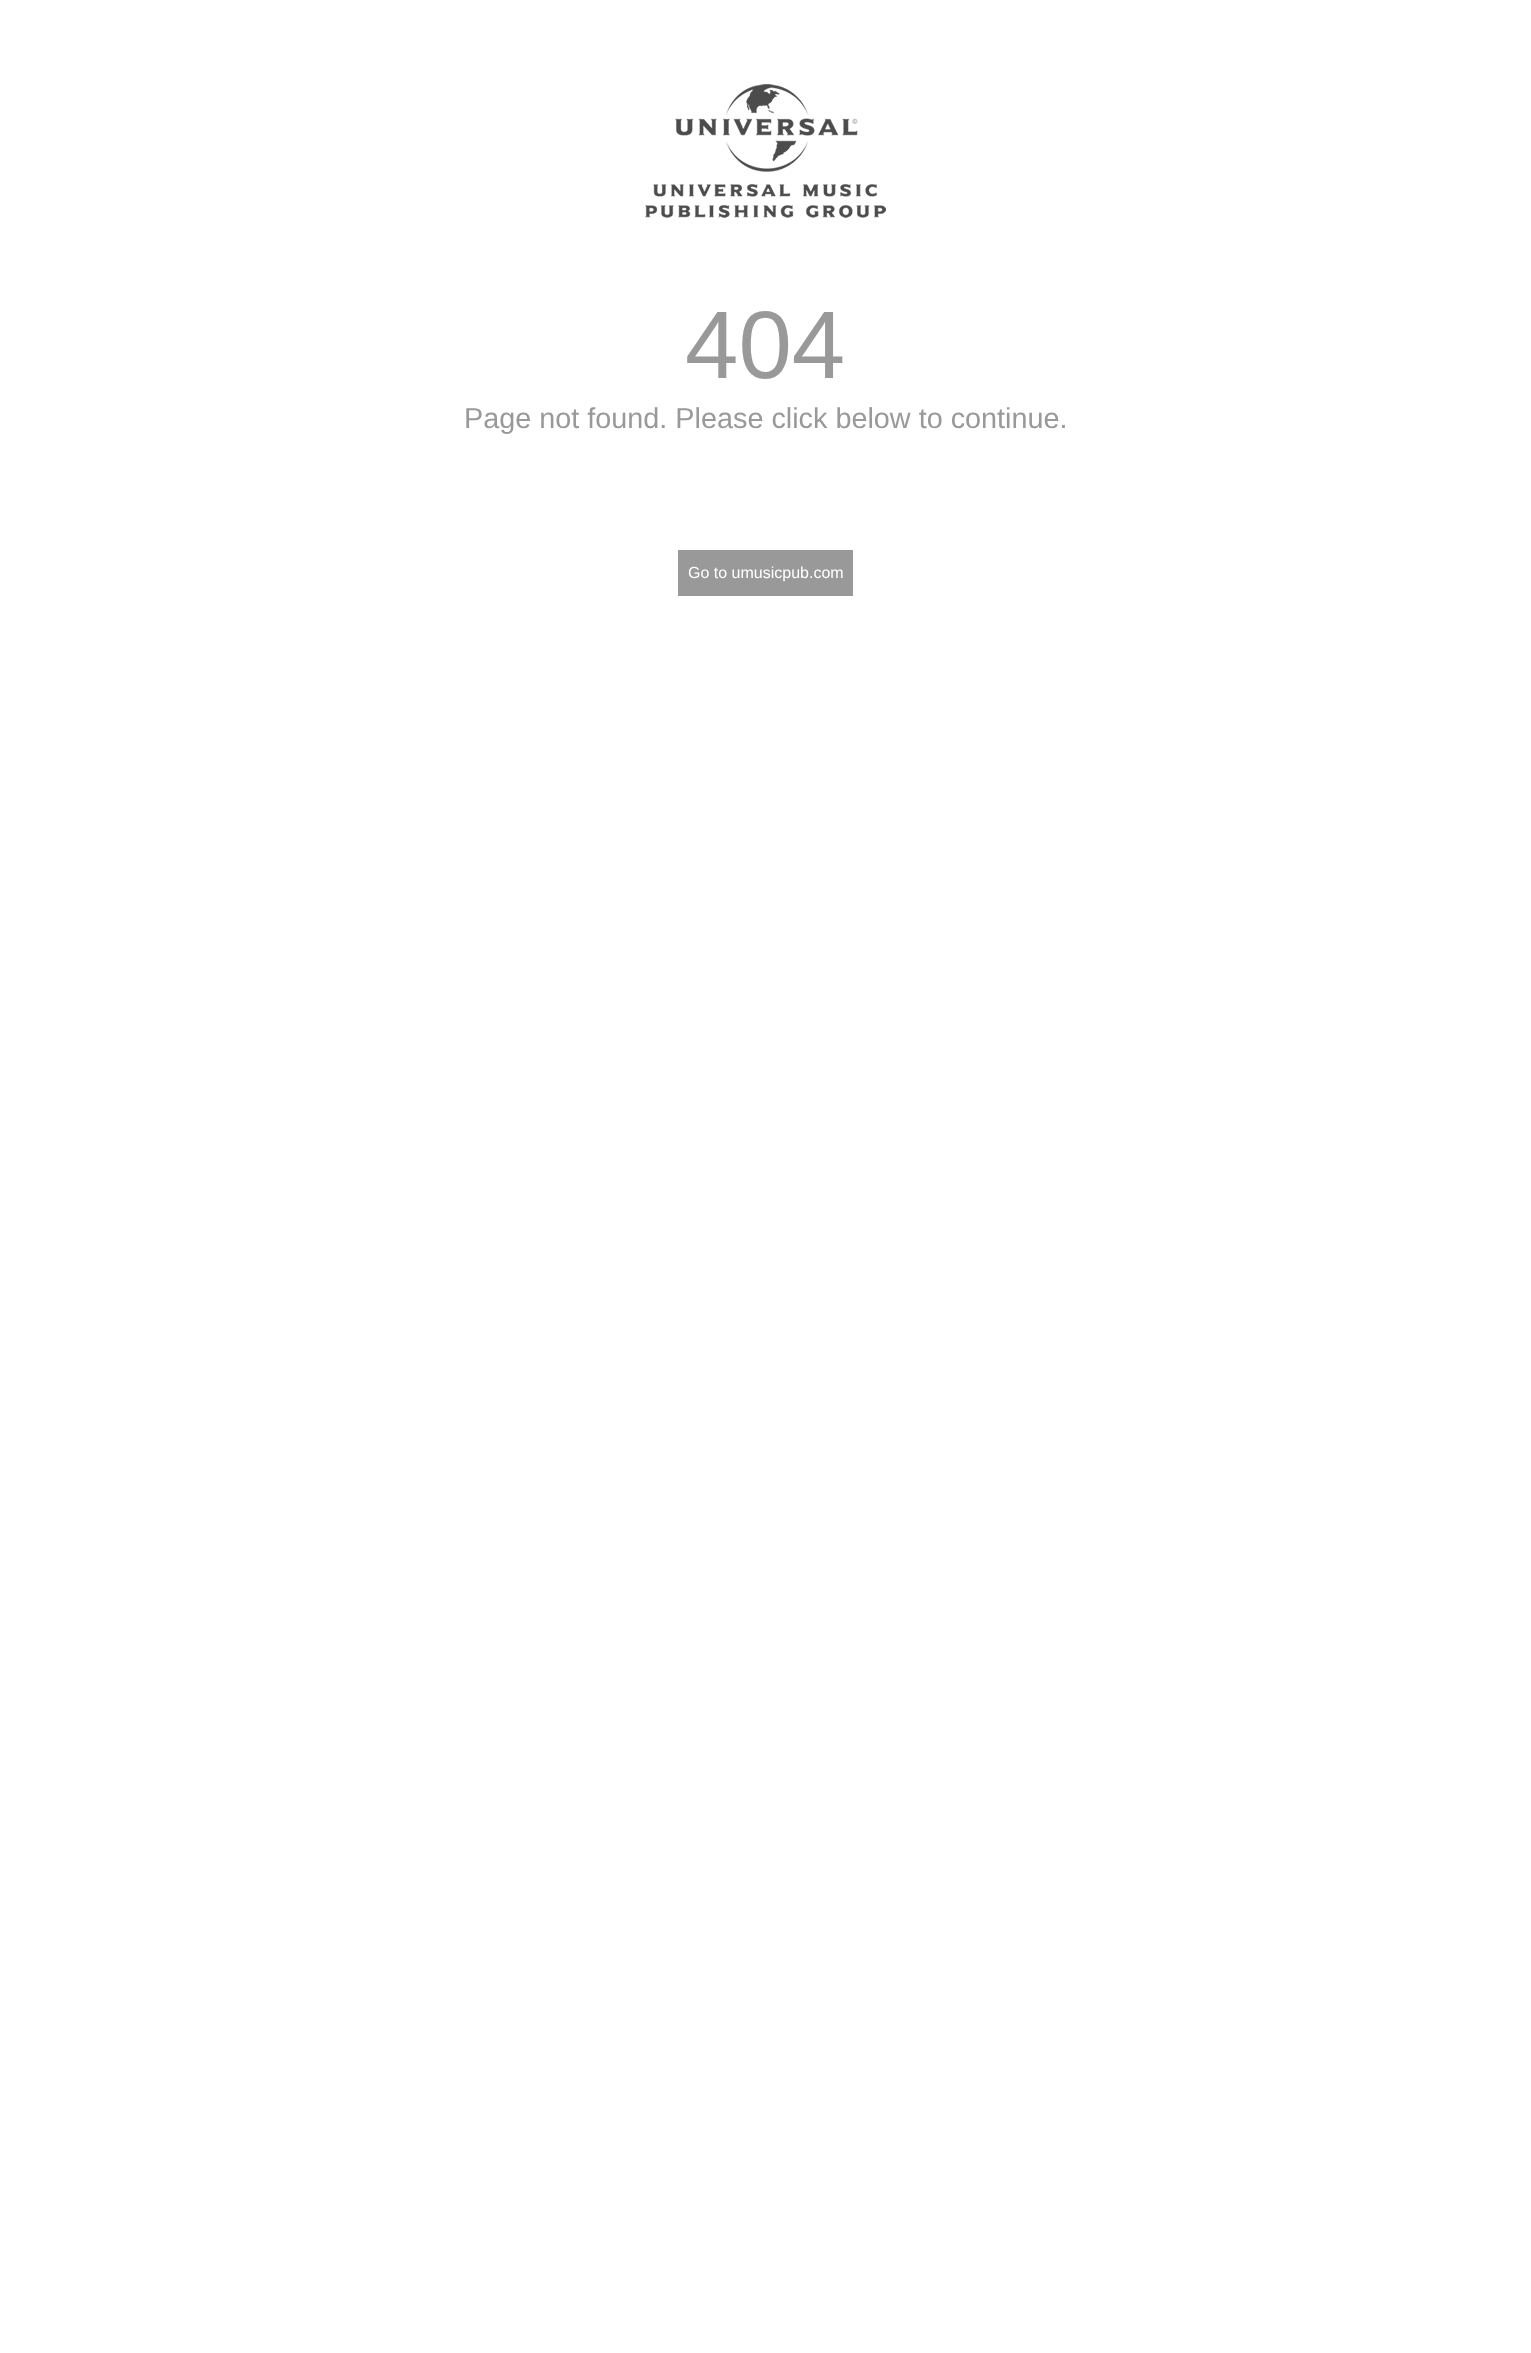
(async () => {
const canvas = document.querySelector("canvas")
canvas.width = 1531
canvas.height = 2353
const c = canvas.getContext("2d")
c.miterLimit = 4
c.fontKerning = "normal"
function T(s,x,y){c.fillText(s,x,y)}
function R(x,y,w,h){c.fillRect(x,y,w,h)}
async function I(src,x,y,w,h){const img=new Image();img.src=src;await img.decode();c.drawImage(img,x,y,w,h)}
c.fillStyle="#fff"
R(0,0,1531,2353)
await I("1.png",645,84,241,134)
c.font="96px Liberation Sans"
c.fillStyle="#999"
T("404",685,378)
c.font="28.8px Liberation Sans"
T("Page not found. Please click below to continue.",464,428)
R(678,550,175,46)
c.font="16px Liberation Sans"
c.fillStyle="#fff"
T("Go to umusicpub.com",688,578)
})()
